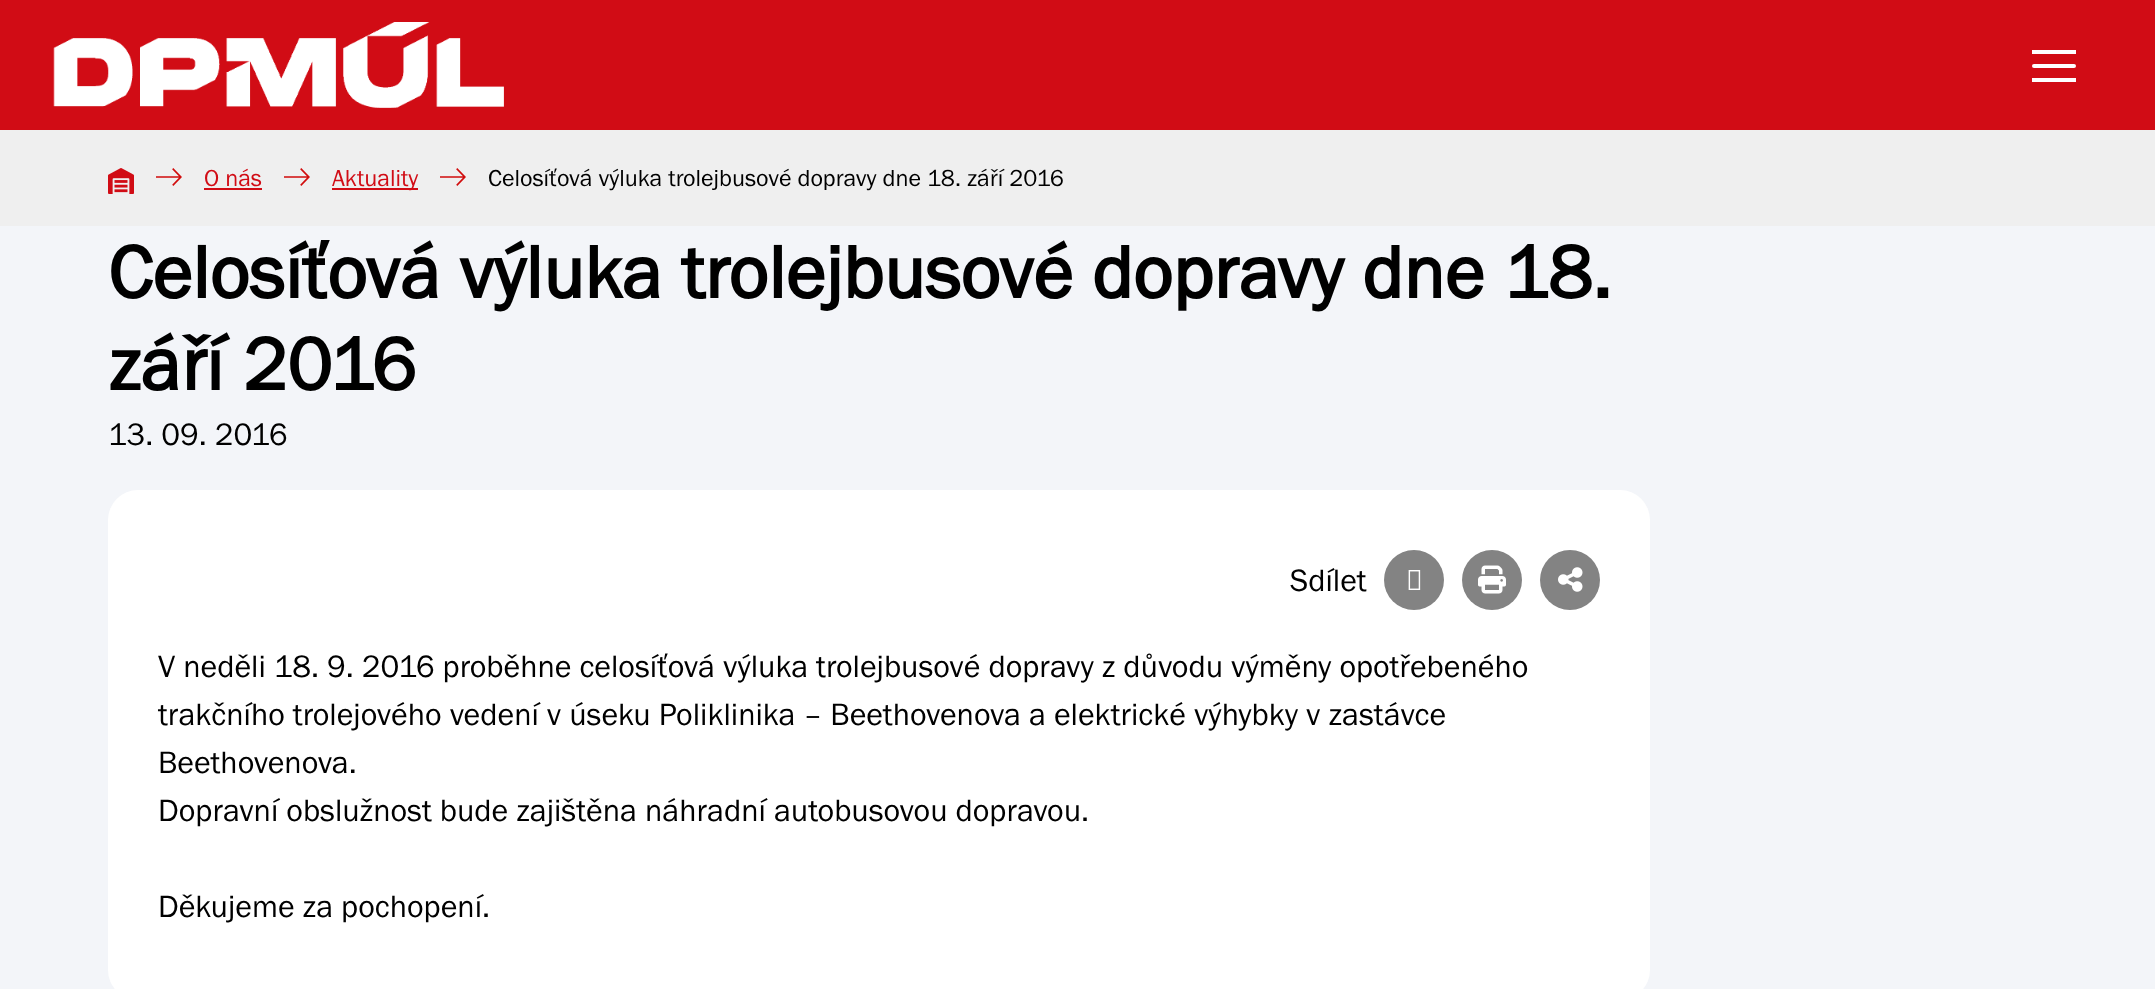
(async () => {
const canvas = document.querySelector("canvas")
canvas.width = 2155
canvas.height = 989
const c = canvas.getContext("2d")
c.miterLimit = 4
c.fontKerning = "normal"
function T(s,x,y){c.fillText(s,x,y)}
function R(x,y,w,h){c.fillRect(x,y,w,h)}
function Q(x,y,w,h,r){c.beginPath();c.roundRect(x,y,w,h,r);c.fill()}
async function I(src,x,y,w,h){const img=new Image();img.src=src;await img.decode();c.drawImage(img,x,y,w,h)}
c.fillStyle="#f3f5f9"
R(0,0,2155,989)
c.fillStyle="#d10c15"
R(0,0,2155,130)
await I("1.png",53,22,451,86)
c.fillStyle="#fff"
R(2032,50,44,4)
Q(2032,64,44,4,2)
R(2032,78,44,4)
c.fillStyle="#efefef"
R(0,130,2155,96)
await I("2.png",108,168,26,26)
await I("3.png",156,168,26,18)
c.font="24px Franklin Gothic"
c.fillStyle="#d10c15"
T("O nás",204,186)
R(204,188,58,2)
await I("3.png",284,168,26,18)
R(332,188,86,2)
T("Aktuality",332,186)
await I("3.png",440,168,26,18)
c.fillStyle="#000"
T("Celosíťová výluka trolejbusové dopravy dne 18. září 2016",488,186)
c.font="bold 76.3px Franklin Gothic"
T("Celosíťová výluka trolejbusové dopravy dne 18.",108,298)
T("září 2016",108,390)
c.font="32px Franklin Gothic"
T("13. 09. 2016",108,445)
c.fillStyle="#fff"
Q(108,490,1542,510,30)
c.fillStyle="#000"
T("Sdílet",1290,591)
c.fillStyle="#838383"
c.beginPath()
c.arc(1414,580,30,0,7)
c.fill()
await I("4.png",1408,570,13,20)
c.beginPath()
c.arc(1492,580,30,0,7)
c.fill()
await I("5.png",1478,565,28,29)
c.beginPath()
c.arc(1570,580,30,0,7)
c.fill()
await I("6.png",1558,567,25,25)
c.fillStyle="#000"
T("V neděli 18. 9. 2016 proběhne celosíťová výluka trolejbusové dopravy z důvodu výměny opotřebeného",158,677)
T("trakčního trolejového vedení v úseku Poliklinika – Beethovenova a elektrické výhybky v zastávce",158,725)
T("Beethovenova.",158,773)
T("Dopravní obslužnost bude zajištěna náhradní autobusovou dopravou.",158,821)
T("Děkujeme za pochopení.",158,917)
})()
